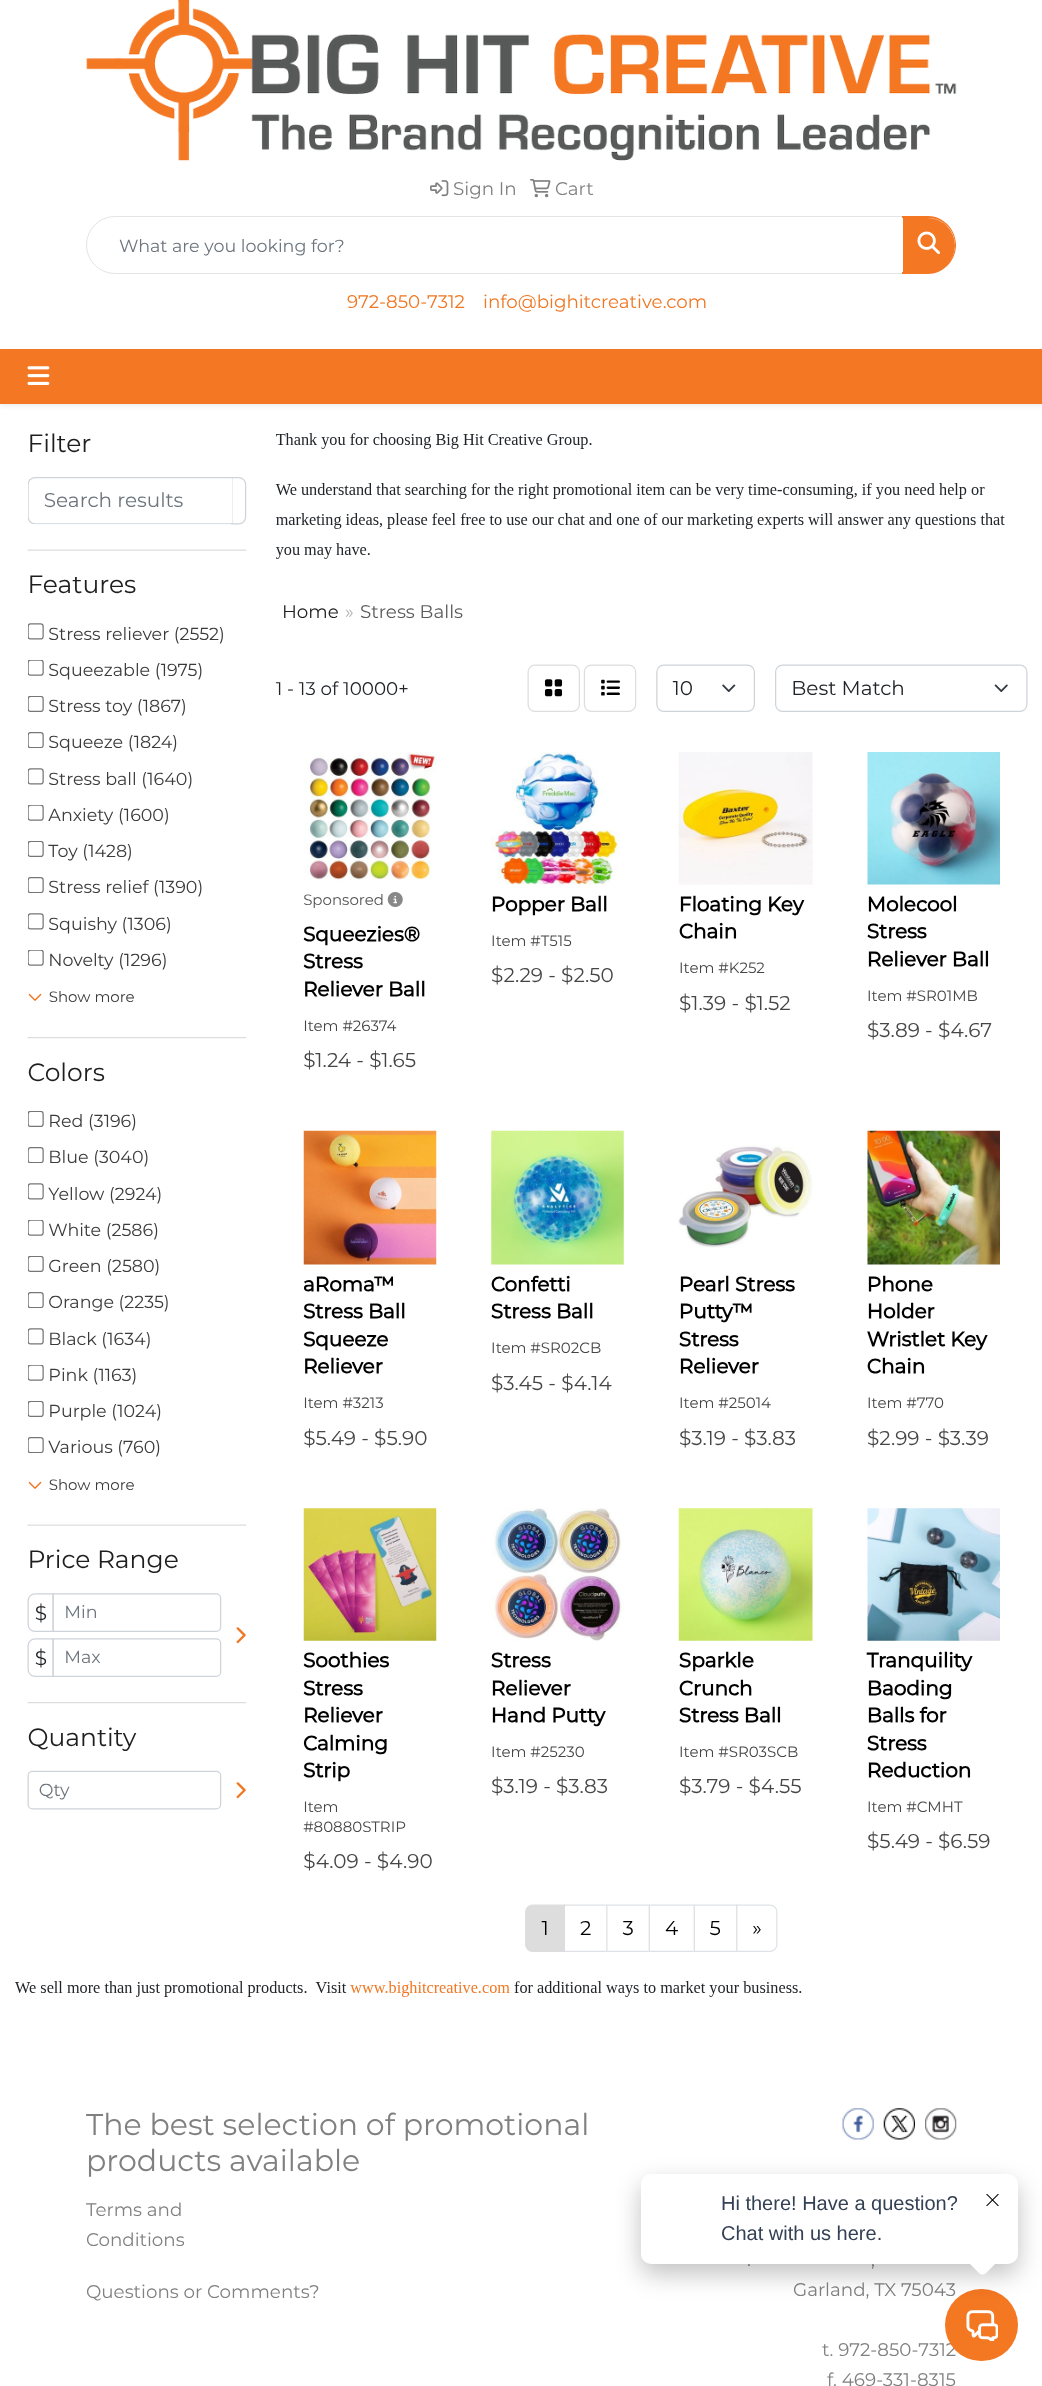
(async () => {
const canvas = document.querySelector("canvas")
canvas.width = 1042
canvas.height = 2386
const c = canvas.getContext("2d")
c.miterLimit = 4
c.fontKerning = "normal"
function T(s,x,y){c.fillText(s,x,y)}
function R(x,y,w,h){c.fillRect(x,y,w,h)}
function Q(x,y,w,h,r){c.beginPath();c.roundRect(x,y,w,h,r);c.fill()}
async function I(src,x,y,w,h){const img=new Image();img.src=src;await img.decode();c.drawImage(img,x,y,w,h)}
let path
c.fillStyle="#fff"
R(0,0,1042,2386)
await I("1.png",86,0,871,161)
await I("2.png",430,180,19,17)
c.font="100 18.3px Montserrat"
c.fillStyle="#808080"
T("Sign In",453,195)
await I("3.png",530,178,21,20)
T("Cart",555,195)
c.beginPath()
c.roundRect(86.5,216.5,817,57,[28.5,0,0,28.5])
c.strokeStyle="#e4e4e4"
c.stroke()
c.font="100 17.5px Montserrat"
c.fillStyle="#6c757d"
T("What are you looking for?",119,252)
c.fillStyle="#f47723"
c.beginPath()
c.roundRect(903,218,52,55,[0,27.5,27.5,0])
c.fill()
path = new Path2D("M902 216h26c15 0 28 13 28 29c0 16-13 29-28 29h-26zm0 2h26c15 0 27 12 27 27c0 15-12 27-27 27h-26z")
c.fill(path,"evenodd")
await I("4.png",917,231,23,23)
c.font="100 18.3px Montserrat"
c.fillStyle="#f07723"
T("972-850-7312",347,308)
T("info@bighitcreative.com",483,308)
c.fillStyle="#00000012"
c.filter="blur(2.5px)"
c.beginPath()
c.rect(0,351,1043,55)
c.fill()
c.filter="none"
c.fillStyle="#f47723"
R(0,349,1042,55)
await I("5.png",27,366,23,19)
await I("6.png",15,433,1013,1564)
c.font="100 30px Montserrat"
c.fillStyle="#808080"
T("The best selection of promotional",86,2135)
T("products available",86,2171)
c.font="100 18.3px Montserrat"
T("Terms and",86,2216)
T("Conditions",86,2246)
T("Questions or Comments?",86,2298)
await I("7.png",842,2108,32,32)
await I("8.png",883,2108,32,32)
await I("9.png",925,2108,32,32)
T(".",747,2266)
T(",",871,2266)
T("Garland, TX 75043",793,2296)
T("t. 972-850-7312",822,2356)
T("f. 469-331-8315",827,2386)
c.fillStyle="#f47722"
Q(945,2289,73,72,36)
await I("11.png",966,2310,32,31)
c.fillStyle="#0000003d"
c.filter="blur(12.5px)"
c.beginPath()
c.roundRect(641,2184,377,90,10)
c.fill()
c.filter="none"
c.fillStyle="#fff"
Q(641,2174,377,90,10)
c.font="20px Liberation Sans"
c.fillStyle="#344054"
T("Hi there! Have a question?",721,2210)
T("Chat with us here.",721,2240)
c.fillStyle="#fff"
path = new Path2D("M986 2244.5l10.5 10.5c2 2 2 5.5 0 7.5l-10.5 10.5c-2 2-5 2-7 0l-10.5-10.5c-2-2-2-5.5 0-7.5l10.5-10.5c2-2 5-2 7 0z")
c.fill(path)
await I("10.png",986,2194,13,12)
})()
